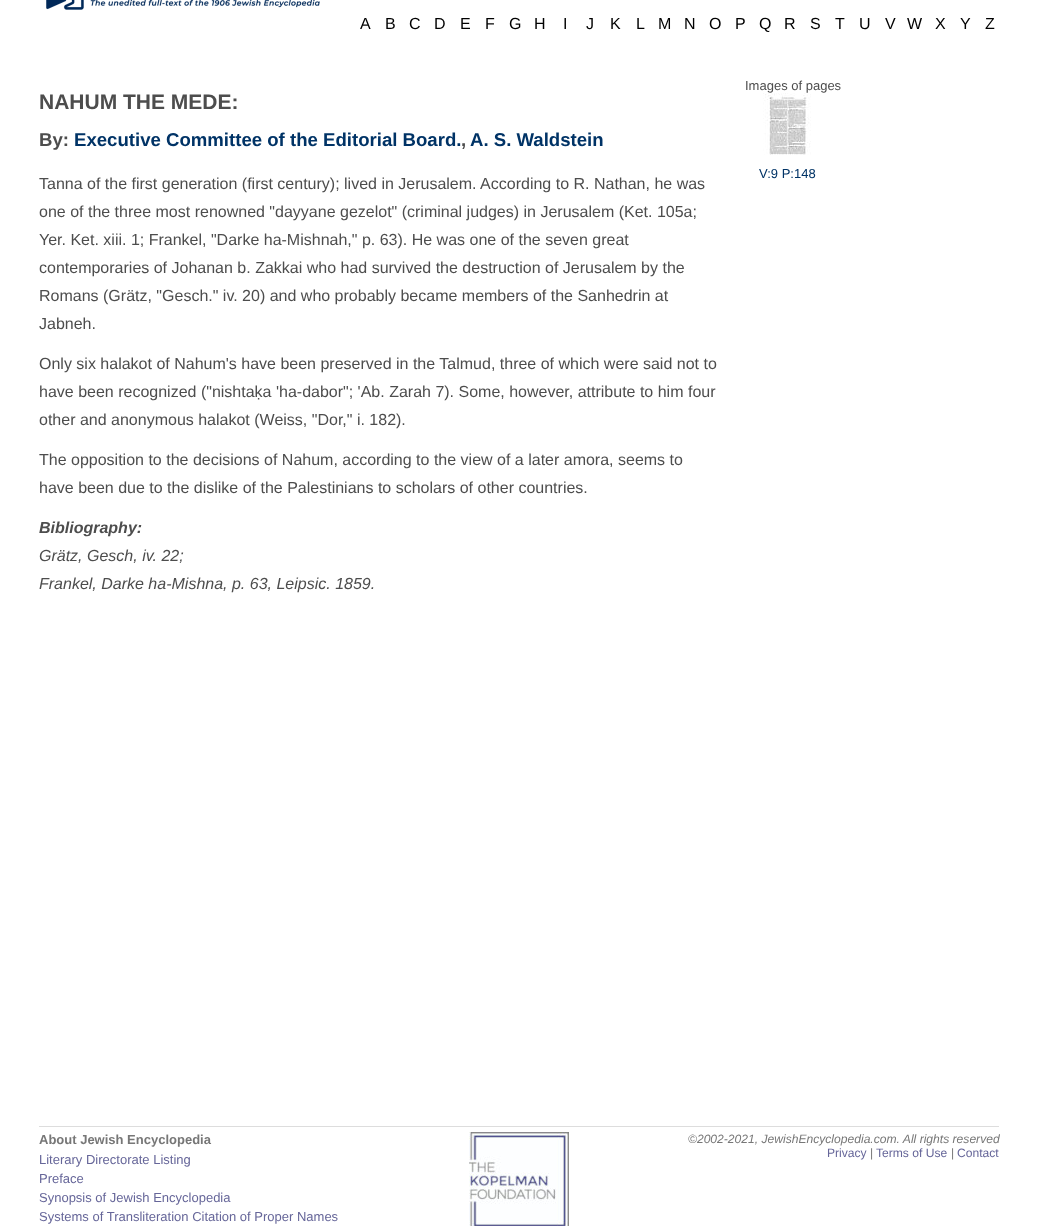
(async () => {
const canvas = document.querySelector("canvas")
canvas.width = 1038
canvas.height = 1226
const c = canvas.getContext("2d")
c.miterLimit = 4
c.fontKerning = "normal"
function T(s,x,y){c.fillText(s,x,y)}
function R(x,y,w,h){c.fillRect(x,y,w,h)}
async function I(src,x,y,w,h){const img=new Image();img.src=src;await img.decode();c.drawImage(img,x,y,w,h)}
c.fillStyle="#fff"
R(0,0,1038,1226)
await I("1.png",46,0,274,10)
c.font="16px Liberation Sans"
c.fillStyle="#010101"
T("A",360,29)
T("B",385,29)
T("C",409,29)
T("D",434,29)
T("E",460,29)
T("F",485,29)
T("G",509,29)
T("H",534,29)
T("I",563,29)
T("J",586,29)
T("K",610,29)
T("L",636,29)
T("M",658,29)
T("N",684,29)
T("O",709,29)
T("P",735,29)
T("Q",759,29)
T("R",784,29)
T("S",810,29)
T("T",835,29)
T("U",859,29)
T("V",885,29)
T("W",907,29)
T("X",935,29)
T("Y",960,29)
T("Z",985,29)
c.font="bold 21px Liberation Sans"
c.fillStyle="#4d4d4d"
T("NAHUM THE MEDE:",39,109)
c.font="bold 18.6px Liberation Sans"
T("By:",39,146)
c.fillStyle="#036"
T("Executive Committee of the Editorial Board.",74,146)
c.fillStyle="#4d4d4d"
T(",",461,146)
c.fillStyle="#036"
T("A. S. Waldstein",470,146)
c.font="16px Liberation Sans"
c.fillStyle="#4d4d4d"
T("Tanna of the first generation (first century); lived in Jerusalem. According to R. Nathan, he was",39,189)
T("one of the three most renowned \"dayyane gezelot\" (criminal judges) in Jerusalem (Ket. 105a;",39,217)
T("Yer. Ket. xiii. 1; Frankel, \"Darke ha-Mishnah,\" p. 63). He was one of the seven great",39,245)
T("contemporaries of Johanan b. Zakkai who had survived the destruction of Jerusalem by the",39,273)
T("Romans (Grätz, \"Gesch.\" iv. 20) and who probably became members of the Sanhedrin at",39,301)
T("Jabneh.",39,329)
T("Only six halakot of Nahum's have been preserved in the Talmud, three of which were said not to",39,369)
T("have been recognized (\"nishtaḳa 'ha-dabor\"; 'Ab. Zarah 7). Some, however, attribute to him four",39,397)
T("other and anonymous halakot (Weiss, \"Dor,\" i. 182).",39,425)
T("The opposition to the decisions of Nahum, according to the view of a later amora, seems to",39,465)
T("have been due to the dislike of the Palestinians to scholars of other countries.",39,493)
c.font="italic bold 16px Liberation Sans"
T("Bibliography:",39,533)
c.font="italic 16px Liberation Sans"
T("Grätz, Gesch, iv. 22;",39,561)
T("Frankel, Darke ha-Mishna, p. 63, Leipsic. 1859.",39,589)
c.font="13px Liberation Sans"
T("Images of pages",745,90)
await I("2.png",763,93,48,62)
c.fillStyle="#036"
T("V:9 P:148",759,178)
c.fillStyle="#ddd"
R(39,1126,960,1)
c.font="bold 13px Liberation Sans"
c.fillStyle="#777"
T("About Jewish Encyclopedia",39,1144)
c.font="13px Liberation Sans"
c.fillStyle="#669"
T("Literary Directorate Listing",39,1164)
T("Preface",39,1183)
T("Synopsis of Jewish Encyclopedia",39,1202)
T("Systems of Transliteration Citation of Proper Names",39,1221)
await I("3.png",469,1132,100,94)
c.font="italic 12.1px Liberation Sans"
c.fillStyle="#777"
T("©2002-2021, JewishEncyclopedia.com. All rights reserved",688,1143)
c.font="12.1px Liberation Sans"
c.fillStyle="#669"
T("Privacy",827,1157)
c.fillStyle="#777"
T("|",870,1157)
c.fillStyle="#669"
T("Terms of Use",876,1157)
c.fillStyle="#777"
T("|",951,1157)
c.fillStyle="#669"
T("Contact",957,1157)
})()
